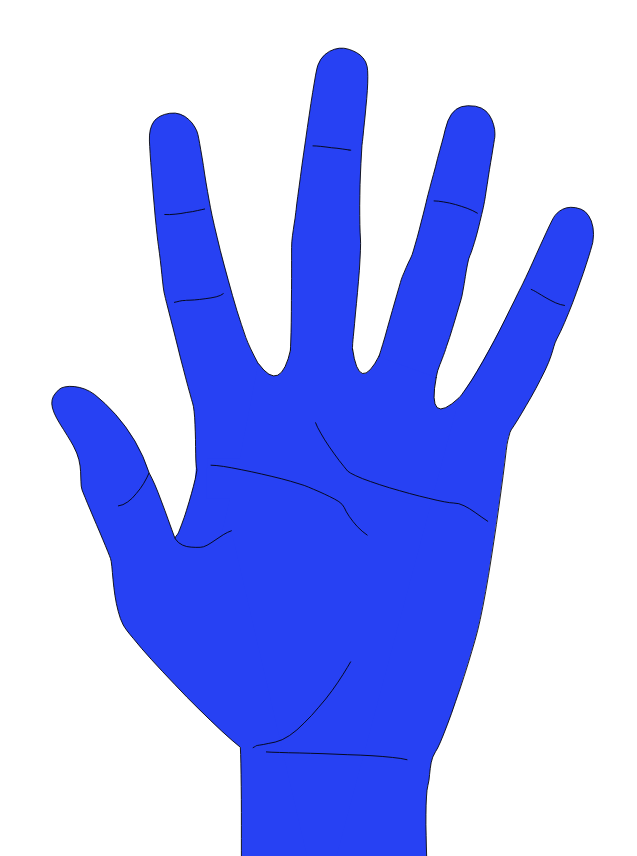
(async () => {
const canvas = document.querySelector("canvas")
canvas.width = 637
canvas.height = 856
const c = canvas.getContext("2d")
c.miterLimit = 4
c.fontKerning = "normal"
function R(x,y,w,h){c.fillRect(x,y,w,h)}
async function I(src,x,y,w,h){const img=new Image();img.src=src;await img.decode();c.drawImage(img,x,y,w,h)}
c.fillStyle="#fff"
R(0,0,637,856)
await I("1.png",51,47,544,809)
})()
